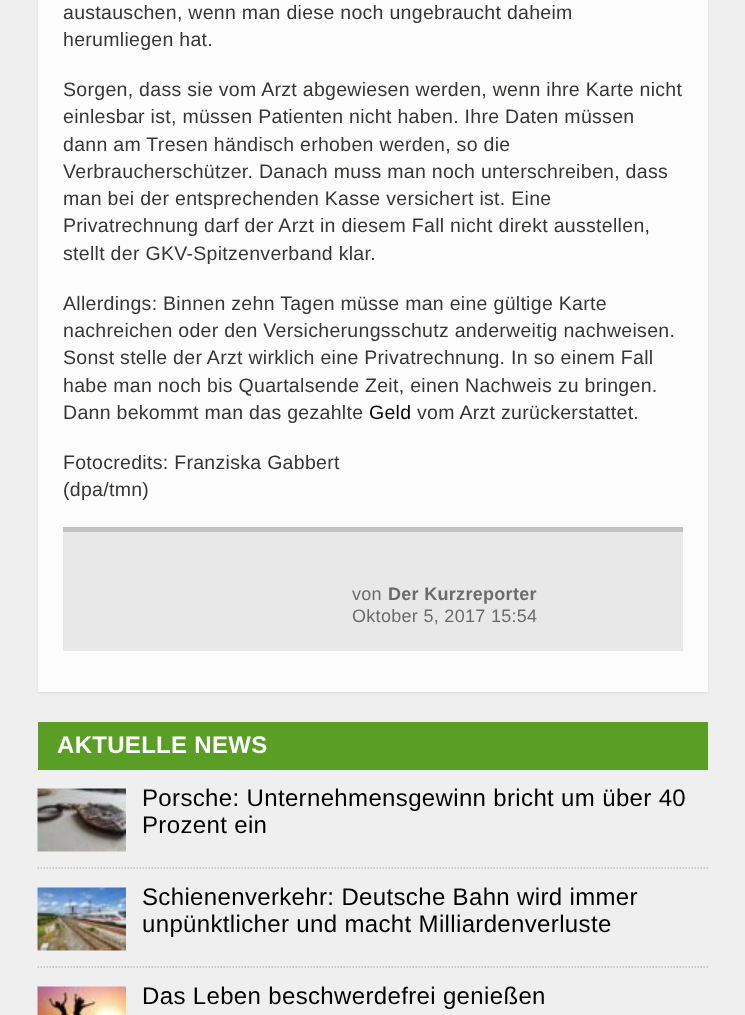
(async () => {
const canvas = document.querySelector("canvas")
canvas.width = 745
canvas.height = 1015
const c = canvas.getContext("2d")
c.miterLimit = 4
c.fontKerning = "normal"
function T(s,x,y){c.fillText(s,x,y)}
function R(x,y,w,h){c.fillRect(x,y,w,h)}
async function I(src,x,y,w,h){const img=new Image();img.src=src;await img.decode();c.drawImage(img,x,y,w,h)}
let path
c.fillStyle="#f0efef"
R(0,0,745,1015)
c.fillStyle="#00000014"
c.filter="blur(1px)"
c.beginPath()
c.rect(38,-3,670,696)
c.fill()
c.filter="none"
c.fillStyle="#fcfcfc"
R(38,0,670,692)
c.letterSpacing="0.3px"
c.font="19.5px Liberation Sans"
c.fillStyle="#363635"
T("austauschen, wenn man diese noch ungebraucht daheim",63,19)
T("herumliegen hat.",63,46)
T("Sorgen, dass sie vom Arzt abgewiesen werden, wenn ihre Karte nicht",63,96)
T("einlesbar ist, müssen Patienten nicht haben. Ihre Daten müssen",63,123)
T("dann am Tresen händisch erhoben werden, so die",63,151)
T("Verbraucherschützer. Danach muss man noch unterschreiben, dass",63,178)
T("man bei der entsprechenden Kasse versichert ist. Eine",63,205)
T("Privatrechnung darf der Arzt in diesem Fall nicht direkt ausstellen,",63,232)
T("stellt der GKV-Spitzenverband klar.",63,260)
T("Allerdings: Binnen zehn Tagen müsse man eine gültige Karte",63,310)
T("nachreichen oder den Versicherungsschutz anderweitig nachweisen.",63,337)
T("Sonst stelle der Arzt wirklich eine Privatrechnung. In so einem Fall",63,364)
T("habe man noch bis Quartalsende Zeit, einen Nachweis zu bringen.",63,392)
T("Dann bekommt man das gezahlte",63,419)
c.fillStyle="#000"
T("Geld",369,419)
c.fillStyle="#363635"
T("vom Arzt zurückerstattet.",417,419)
T("Fotocredits: Franziska Gabbert",63,469)
T("(dpa/tmn)",63,496)
c.fillStyle="#e8e8e8"
R(63,532,620,119)
c.fillStyle="#c1c1c1"
R(63,527,620,5)
c.font="18px Liberation Sans"
c.fillStyle="#6b6b6b"
T("von",352,600)
c.font="bold 18px Liberation Sans"
T("Der Kurzreporter",388,600)
c.font="18px Liberation Sans"
T("Oktober 5, 2017 15:54",352,622)
c.fillStyle="#5a9e25"
R(38,722,670,48)
c.font="bold 24px Liberation Sans"
c.fillStyle="#fff"
T("AKTUELLE NEWS",57,753)
path = new Path2D("M37.5 868h670.5")
c.strokeStyle="#c0bfbf"
c.lineWidth=1.5
c.setLineDash([1.5,1.5])
c.stroke(path)
await I("1.png",37,788,89,64)
c.letterSpacing="0.35px"
c.font="24px Liberation Sans"
c.fillStyle="#000"
T("Porsche: Unternehmensgewinn bricht um über 40",142,806)
T("Prozent ein",142,833)
path = new Path2D("M37.5 967h670.5")
c.stroke(path)
await I("2.png",37,887,89,64)
T("Schienenverkehr: Deutsche Bahn wird immer",142,905)
T("unpünktlicher und macht Milliardenverluste",142,932)
await I("3.png",37,986,89,29)
T("Das Leben beschwerdefrei genießen",142,1004)
})()
